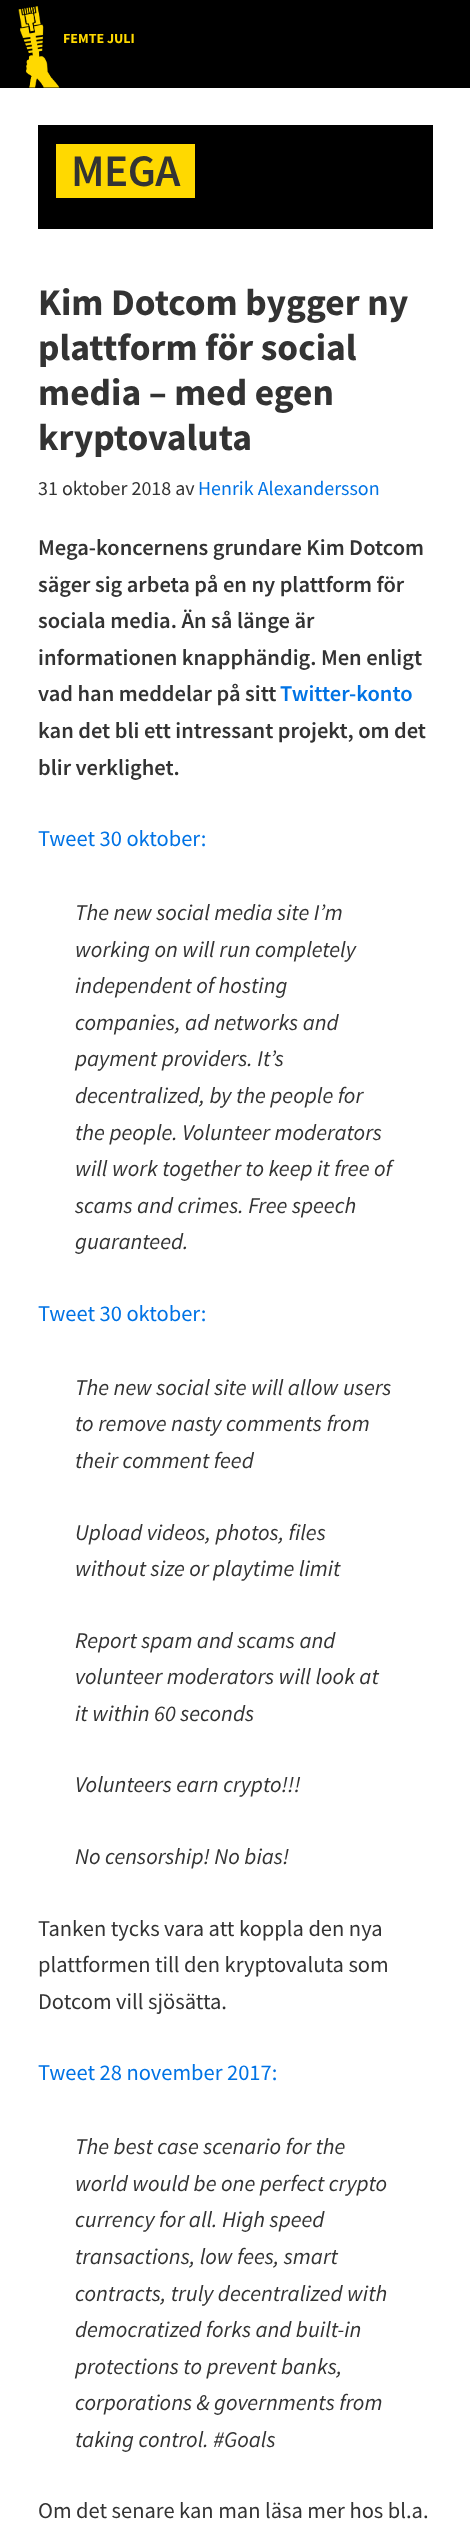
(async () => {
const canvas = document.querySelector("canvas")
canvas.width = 470
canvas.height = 2542
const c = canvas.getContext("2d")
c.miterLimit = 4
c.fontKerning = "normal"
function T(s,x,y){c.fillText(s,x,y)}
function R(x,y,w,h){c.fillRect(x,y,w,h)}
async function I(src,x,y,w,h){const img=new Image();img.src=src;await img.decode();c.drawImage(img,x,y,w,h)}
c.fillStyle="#000"
R(0,0,470,2542)
await I("1.png",18,6,42,82)
c.font="bold 14px Source Sans Pro"
c.fillStyle="#ffd900"
T("FEMTE JULI",63,43)
c.fillStyle="#fff"
R(0,88,470,2454)
c.fillStyle="#000"
R(38,125,395,104)
c.fillStyle="#ffd900"
R(56,144,139,54)
c.letterSpacing="-0.5px"
c.font="600 45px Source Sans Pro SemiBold"
c.fillStyle="#333"
T("MEGA",71,186)
c.letterSpacing="0px"
c.font="bold 37.5px Source Sans Pro"
T("Kim Dotcom bygger ny",38,315)
T("plattform för social",38,360)
T("media – med egen",38,405)
T("kryptovaluta",38,450)
c.font="20px Source Sans Pro"
T("31 oktober 2018 av",38,495)
c.fillStyle="#0073e5"
T("Henrik Alexandersson",198,495)
c.font="600 22.5px Source Sans Pro SemiBold"
c.fillStyle="#333"
T("Mega-koncernens grundare Kim Dotcom",38,555)
T("säger sig arbeta på en ny plattform för",38,592)
T("sociala media. Än så länge är",38,628)
T("informationen knapphändig. Men enligt",38,665)
T("vad han meddelar på sitt",38,701)
c.fillStyle="#0073e5"
T("Twitter-konto",280,701)
c.fillStyle="#333"
T("kan det bli ett intressant projekt, om det",38,738)
T("blir verklighet.",38,775)
c.font="22.5px Source Sans Pro"
c.fillStyle="#0073e5"
T("Tweet 30 oktober:",38,846)
c.font="italic 22.5px Source Sans Pro"
c.fillStyle="#333"
T("The new social media site I’m",75,920)
T("working on will run completely",75,957)
T("independent of hosting",75,993)
T("companies, ad networks and",75,1030)
T("payment providers. It’s",75,1066)
T("decentralized, by the people for",75,1103)
T("the people. Volunteer moderators",75,1140)
T("will work together to keep it free of",75,1176)
T("scams and crimes. Free speech",75,1213)
T("guaranteed.",75,1249)
c.font="22.5px Source Sans Pro"
c.fillStyle="#0073e5"
T("Tweet 30 oktober:",38,1321)
c.font="italic 22.5px Source Sans Pro"
c.fillStyle="#333"
T("The new social site will allow users",75,1395)
T("to remove nasty comments from",75,1431)
T("their comment feed",75,1468)
T("Upload videos, photos, files",75,1540)
T("without size or playtime limit",75,1576)
T("Report spam and scams and",75,1648)
T("volunteer moderators will look at",75,1684)
T("it within 60 seconds",75,1721)
T("Volunteers earn crypto!!!",75,1792)
T("No censorship! No bias!",75,1864)
c.font="22.5px Source Sans Pro"
T("Tanken tycks vara att koppla den nya",38,1936)
T("plattformen till den kryptovaluta som",38,1972)
T("Dotcom vill sjösätta.",38,2009)
c.fillStyle="#0073e5"
T("Tweet 28 november 2017:",38,2080)
c.font="italic 22.5px Source Sans Pro"
c.fillStyle="#333"
T("The best case scenario for the",75,2154)
T("world would be one perfect crypto",75,2191)
T("currency for all. High speed",75,2227)
T("transactions, low fees, smart",75,2264)
T("contracts, truly decentralized with",75,2301)
T("democratized forks and built-in",75,2337)
T("protections to prevent banks,",75,2374)
T("corporations & governments from",75,2410)
T("taking control. #Goals",75,2447)
c.font="22.5px Source Sans Pro"
T("Om det senare kan man läsa mer hos bl.a.",38,2518)
})()
